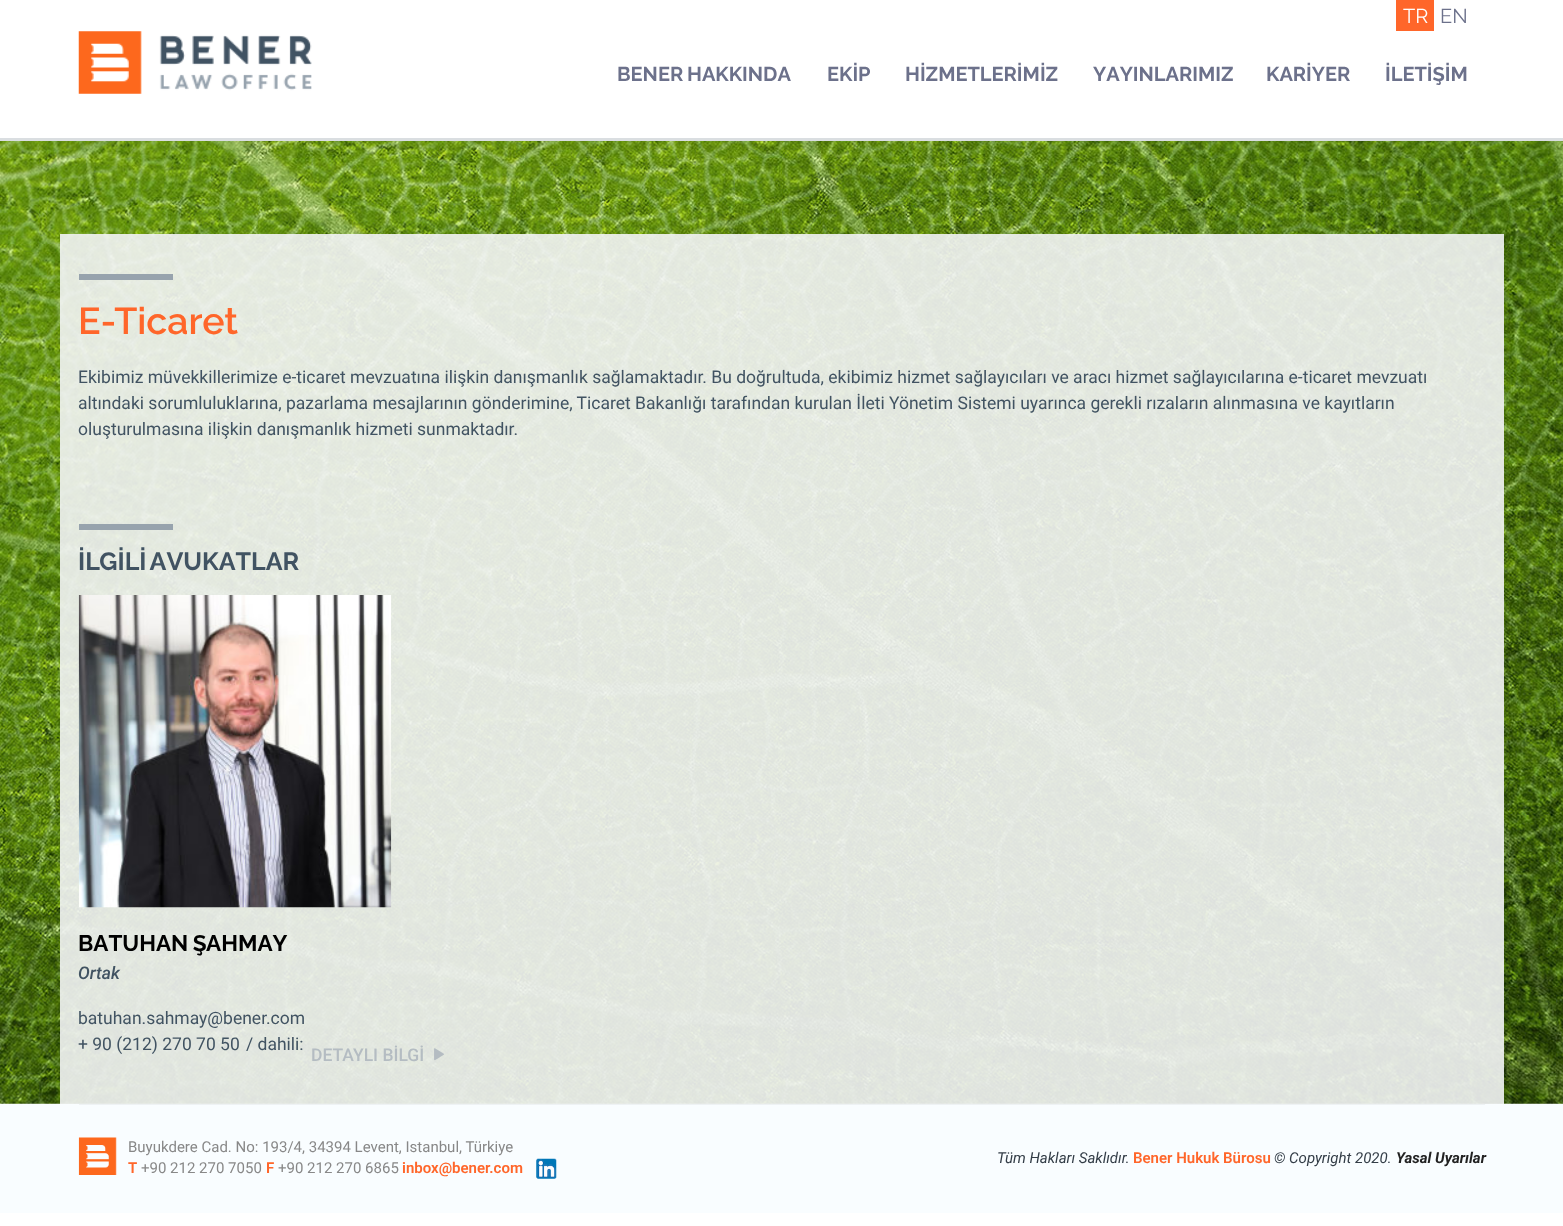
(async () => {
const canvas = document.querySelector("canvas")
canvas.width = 1563
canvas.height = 1226
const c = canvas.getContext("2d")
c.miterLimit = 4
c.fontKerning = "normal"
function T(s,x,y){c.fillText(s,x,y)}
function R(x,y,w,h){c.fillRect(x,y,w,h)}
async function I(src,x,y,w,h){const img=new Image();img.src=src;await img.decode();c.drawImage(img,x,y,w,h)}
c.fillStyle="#fff"
R(0,0,1563,1226)
c.fillStyle="#dadee1"
R(0,138,1563,3)
await I("1.png",78,31,234,63)
c.fillStyle="#ff662a"
R(1396,0,38,31)
c.font="20px Raleway"
c.fillStyle="#fff"
T("TR",1403,23)
c.fillStyle="#6c718b"
T("EN",1440,23)
c.wordSpacing="-1px"
c.font="bold 20px Raleway"
T("BENER HAKKINDA",617,81)
c.wordSpacing="0px"
T("EKİP",827,81)
T("HİZMETLERİMİZ",905,81)
T("YAYINLARIMIZ",1093,81)
T("KARİYER",1266,81)
T("İLETİŞİM",1385,81)
await I("2.png",0,141,1563,963)
c.fillStyle="#f3f4f6e6"
R(60,234,1444,870)
c.fillStyle="#97a3ad"
R(79,274,94,6)
c.font="600 37.5px Raleway"
c.fillStyle="#ff662a"
T("E-Ticaret",78,334)
c.font="17.5px Roboto"
c.fillStyle="#415362"
T("Ekibimiz müvekkillerimize e-ticaret mevzuatına ilişkin danışmanlık sağlamaktadır. Bu doğrultuda, ekibimiz hizmet sağlayıcıları ve aracı hizmet sağlayıcılarına e-ticaret mevzuatı",78,383)
T("altındaki sorumluluklarına, pazarlama mesajlarının gönderimine, Ticaret Bakanlığı tarafından kurulan İleti Yönetim Sistemi uyarınca gerekli rızaların alınmasına ve kayıtların",78,409)
T("oluşturulmasına ilişkin danışmanlık hizmeti sunmaktadır.",78,435)
c.fillStyle="#97a3ad"
R(79,524,94,6)
c.wordSpacing="-2px"
c.font="bold 25px Raleway"
c.fillStyle="#415362"
T("İLGİLİ AVUKATLAR",78,570)
await I("3.png",78,595,314,313)
c.wordSpacing="-1px"
c.font="bold 22.5px Raleway"
c.fillStyle="#000"
T("BATUHAN ŞAHMAY",78,951)
c.wordSpacing="0px"
c.font="italic 500 17.5px Roboto"
c.fillStyle="#415362"
T("Ortak",78,979)
c.font="17.5px Roboto"
T("batuhan.sahmay@bener.com",78,1024)
T("+ 90 (212) 270 70 50",78,1050)
T("/ dahili:",246,1050)
c.font="500 17.5px Roboto"
c.fillStyle="#b4bcc2"
T("DETAYLI BİLGİ",311,1061)
await I("4.png",434,1048,10,13)
c.fillStyle="#f9fdff"
R(0,1104,1563,109)
c.fillStyle="#eef2f4"
R(79,1104,1406,1)
await I("5.png",78,1137,39,38)
c.font="15px Roboto"
c.fillStyle="#888"
T("Buyukdere Cad. No: 193/4, 34394 Levent, Istanbul, Türkiye",128,1152)
c.font="600 15px Roboto"
c.fillStyle="#ff662a"
T("T",128,1173)
c.font="15px Roboto"
c.fillStyle="#888"
T("+90 212 270 7050",141,1173)
c.font="600 15px Roboto"
c.fillStyle="#ff662a"
T("F",266,1173)
c.font="15px Roboto"
c.fillStyle="#888"
T("+90 212 270 6865",278,1173)
c.font="600 15px Roboto"
c.fillStyle="#ff662a"
T("inbox@bener.com",402,1173)
await I("6.png",536,1158,21,21)
c.font="italic 15px Roboto"
c.fillStyle="#333d47"
T("Tüm Hakları Saklıdır.",997,1163)
c.font="600 15px Roboto"
c.fillStyle="#ff662a"
T("Bener Hukuk Bürosu",1133,1163)
c.font="italic 15px Roboto"
c.fillStyle="#333d47"
T("© Copyright 2020.",1274,1163)
c.font="italic bold 15px Roboto"
c.fillStyle="#222"
T("Yasal Uyarılar",1396,1163)
})()
